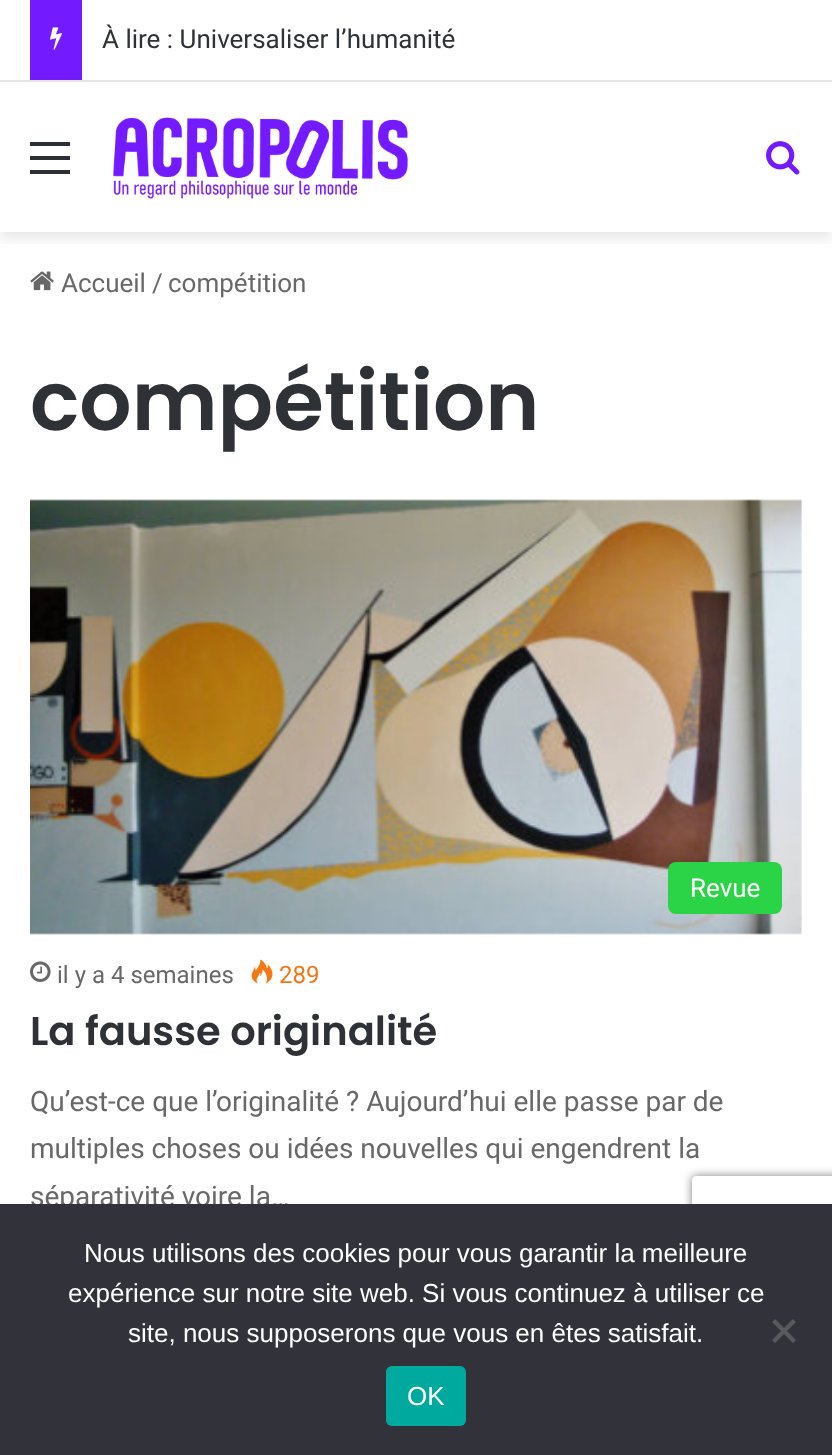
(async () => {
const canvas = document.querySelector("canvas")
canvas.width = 832
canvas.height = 1455
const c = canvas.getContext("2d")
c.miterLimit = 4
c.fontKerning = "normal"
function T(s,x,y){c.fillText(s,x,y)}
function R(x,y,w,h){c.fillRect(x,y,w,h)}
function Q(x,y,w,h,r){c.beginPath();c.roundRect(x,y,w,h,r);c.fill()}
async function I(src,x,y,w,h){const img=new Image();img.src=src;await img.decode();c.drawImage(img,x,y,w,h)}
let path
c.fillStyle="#fff"
R(0,0,832,1455)
c.save()
c.beginPath()
c.rect(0,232,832,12)
c.clip()
c.fillStyle="#0000001a"
c.filter="blur(7px)"
c.beginPath()
c.rect(0,88,832,150)
c.fill()
c.filter="none"
c.restore()
R(9,79,814,1)
c.fillStyle="#e6e6e6"
R(0,80,832,2)
c.fillStyle="#731aff"
R(30,0,52,80)
await I("1.png",50,27,12,23)
c.font="26px Roboto"
c.fillStyle="#2e3136"
T("À lire : Universaliser l’humanité",102,48)
c.fillStyle="#2c2f34"
R(30,156,40,4)
R(30,142,40,4)
R(30,170,40,4)
await I("2.png",113,117,295,82)
await I("3.png",766,141,34,34)
await I("4.png",30,271,24,20)
c.fillStyle="#686868"
T("Accueil",61,292)
T("/",152,292)
T("compétition",168,292)
c.font="600 82px Poppins"
c.fillStyle="#2e3136"
T("compétition",30,430)
await I("5.png",30,499,772,436)
c.fillStyle="#2bd347"
Q(668,862,114,52,8)
c.font="26px Roboto"
c.fillStyle="#fff"
T("Revue",690,897)
await I("6.png",30,961,21,21)
c.font="24px Roboto"
c.fillStyle="#686868"
T("il y a 4 semaines",57,983)
await I("7.png",251,959,22,25)
c.fillStyle="#f47614"
T("289",279,983)
c.font="600 40px Poppins"
c.fillStyle="#2e3136"
T("La fausse originalité",30,1045)
c.font="28px Roboto"
c.fillStyle="#686868"
T("Qu’est-ce que l’originalité ? Aujourd’hui elle passe par de",30,1111)
T("multiples choses ou idées nouvelles qui engendrent la",30,1158)
T("séparativité voire la…",30,1206)
c.save()
path = new Path2D("M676 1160h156v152h-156zm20 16h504c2 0 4 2 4 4v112c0 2-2 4-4 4h-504c-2 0-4-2-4-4v-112c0-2 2-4 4-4z")
c.clip(path,"evenodd")
c.fillStyle="#808080"
c.filter="blur(5px)"
c.beginPath()
c.roundRect(692,1176,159,120,4)
c.fill()
c.filter="none"
c.restore()
c.fillStyle="#32323a"
R(0,1204,832,251)
c.font="26px Liberation Sans"
c.fillStyle="#fff"
T("Nous utilisons des cookies pour vous garantir la meilleure",84,1262)
T("expérience sur notre site web. Si vous continuez à utiliser ce",68,1302)
T("site, nous supposerons que vous en êtes satisfait.",128,1342)
c.fillStyle="#59595d"
path = new Path2D("M793 1319l3 3l-21 21l-3-3z")
c.fill(path)
path = new Path2D("M772 1322l3-3l21 21l-3 3z")
c.fill(path)
c.fillStyle="#00a99d"
Q(386,1366,80,60,6)
c.fillStyle="#fff"
T("OK",407,1405)
})()
